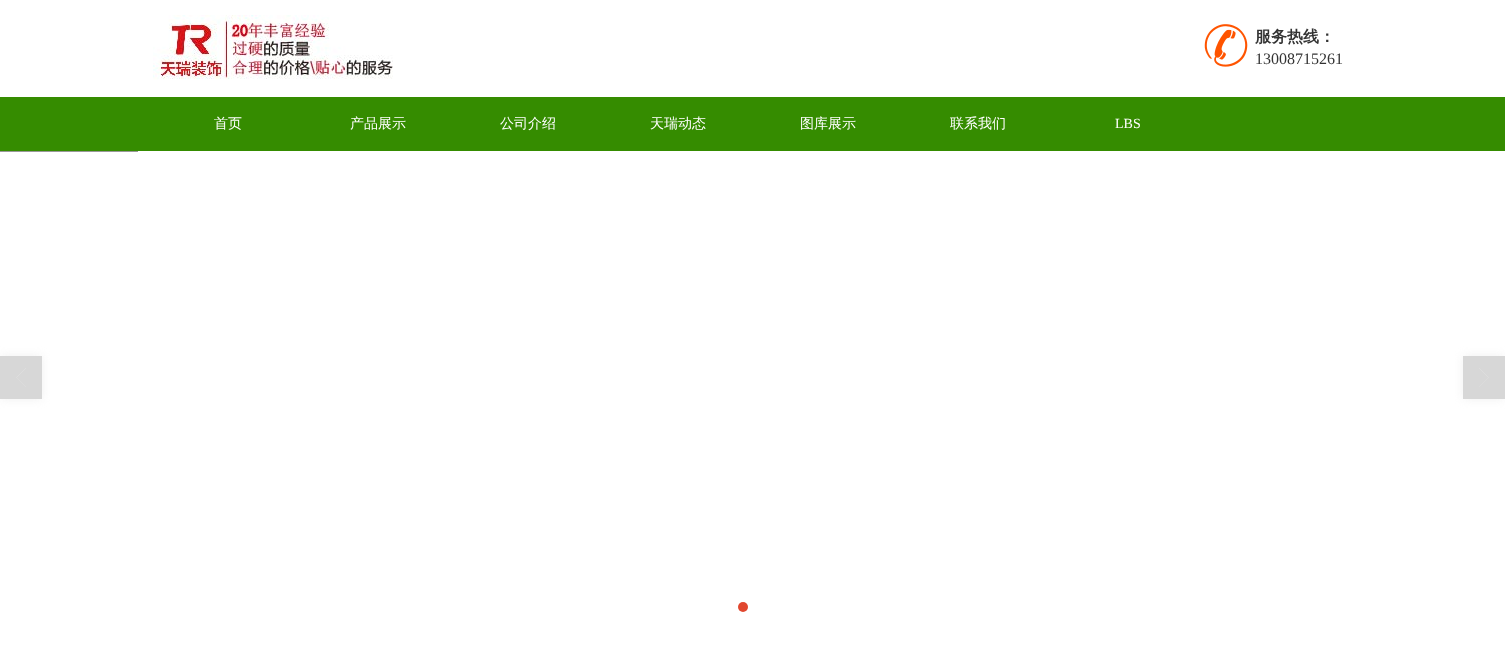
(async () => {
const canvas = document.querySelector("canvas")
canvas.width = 1505
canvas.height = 651
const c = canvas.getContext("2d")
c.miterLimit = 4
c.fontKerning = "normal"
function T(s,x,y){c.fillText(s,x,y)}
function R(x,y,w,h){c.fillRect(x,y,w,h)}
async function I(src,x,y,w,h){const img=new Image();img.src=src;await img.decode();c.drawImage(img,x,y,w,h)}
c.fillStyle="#fff"
R(0,0,1505,651)
await I("1.png",153,15,240,65)
await I("2.png",1204,24,44,43)
c.font="bold 16px WenQuanYi Zen Hei"
c.fillStyle="#333"
T("服务热线：",1255,42)
c.font="16px Liberation Serif"
T("13008715261",1255,64)
c.fillStyle="#358c00"
R(0,97,1505,54)
c.font="500 14px WenQuanYi Zen Hei"
c.fillStyle="#fff"
T("首页",214,128)
T("产品展示",350,128)
T("公司介绍",500,128)
T("天瑞动态",650,128)
T("图库展示",800,128)
T("联系我们",950,128)
c.font="14px Liberation Serif"
T("LBS",1115,128)
c.fillStyle="#999"
R(0,151,138,1)
c.fillStyle="#cccccc4d"
c.filter="blur(5px)"
c.beginPath()
c.rect(0,356,42,43)
c.fill()
c.filter="none"
c.fillStyle="#d7d7d7"
R(0,356,42,43)
await I("3.png",16,368,10,19)
c.fillStyle="#cccccc4d"
c.filter="blur(5px)"
c.beginPath()
c.rect(1463,356,42,43)
c.fill()
c.filter="none"
c.fillStyle="#d7d7d7"
R(1463,356,42,43)
await I("4.png",1479,368,10,19)
c.fillStyle="#e1472f"
c.beginPath()
c.arc(743,607,5,0,7)
c.fill()
})()
